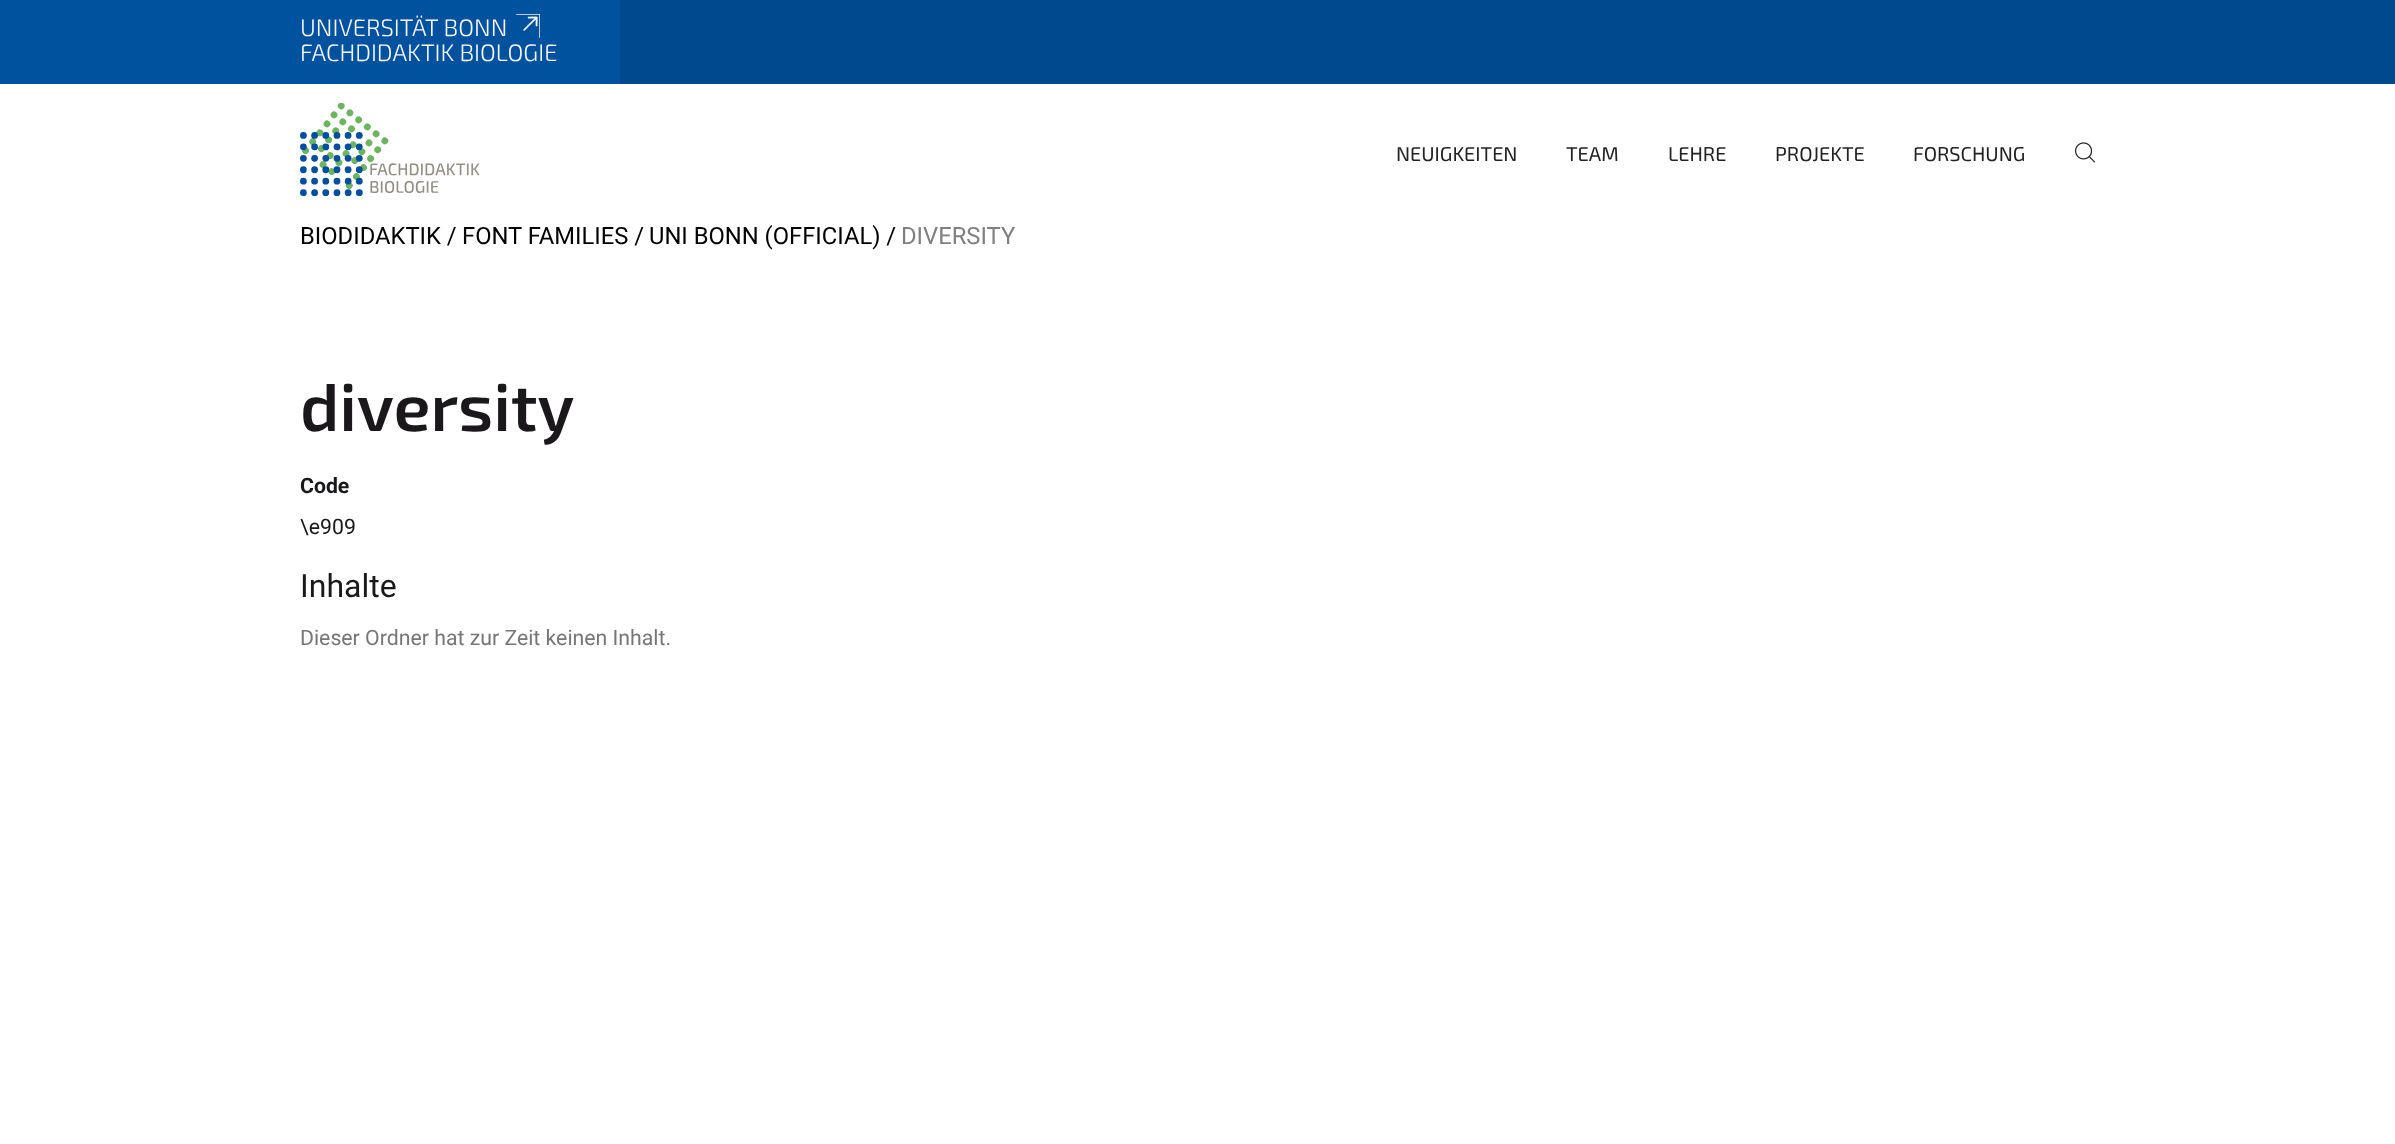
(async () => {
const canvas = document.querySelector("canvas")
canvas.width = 2395
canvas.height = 1144
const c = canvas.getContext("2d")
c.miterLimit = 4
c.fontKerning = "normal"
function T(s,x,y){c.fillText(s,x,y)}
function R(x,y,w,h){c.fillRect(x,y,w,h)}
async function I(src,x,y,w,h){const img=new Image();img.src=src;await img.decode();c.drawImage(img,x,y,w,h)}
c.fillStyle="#fff"
R(0,0,2395,1144)
c.fillStyle="#00498f"
R(620,0,1775,84)
c.fillStyle="#00529f"
R(0,0,620,84)
c.font="300 23.75px 'Exo 2'"
c.fillStyle="#f6f7f9"
T("UNIVERSITÄT BONN",300,36)
await I("1.png",516,14,24,24)
T("FACHDIDAKTIK BIOLOGIE",300,61)
await I("2.png",300,103,180,93)
c.font="20px 'Exo 2'"
c.fillStyle="#222"
T("NEUIGKEITEN",1396,161)
T("TEAM",1566,161)
T("LEHRE",1668,161)
T("PROJEKTE",1775,161)
T("FORSCHUNG",1913,161)
await I("3.png",2075,142,21,21)
c.font="23.75px Roboto"
c.fillStyle="#000"
T("BIODIDAKTIK /",300,244)
T("FONT FAMILIES /",462,244)
T("UNI BONN (OFFICIAL) /",649,244)
c.fillStyle="#808080"
T("DIVERSITY",901,244)
c.font="600 67px 'Exo 2'"
c.fillStyle="#1a181b"
T("diversity",300,431)
c.font="bold 21.25px Roboto"
T("Code",300,493)
c.font="21.25px Roboto"
T("\\e909",300,534)
c.font="32px Roboto"
T("Inhalte",300,597)
c.font="21.25px Roboto"
c.fillStyle="#777"
T("Dieser Ordner hat zur Zeit keinen Inhalt.",300,645)
})()
